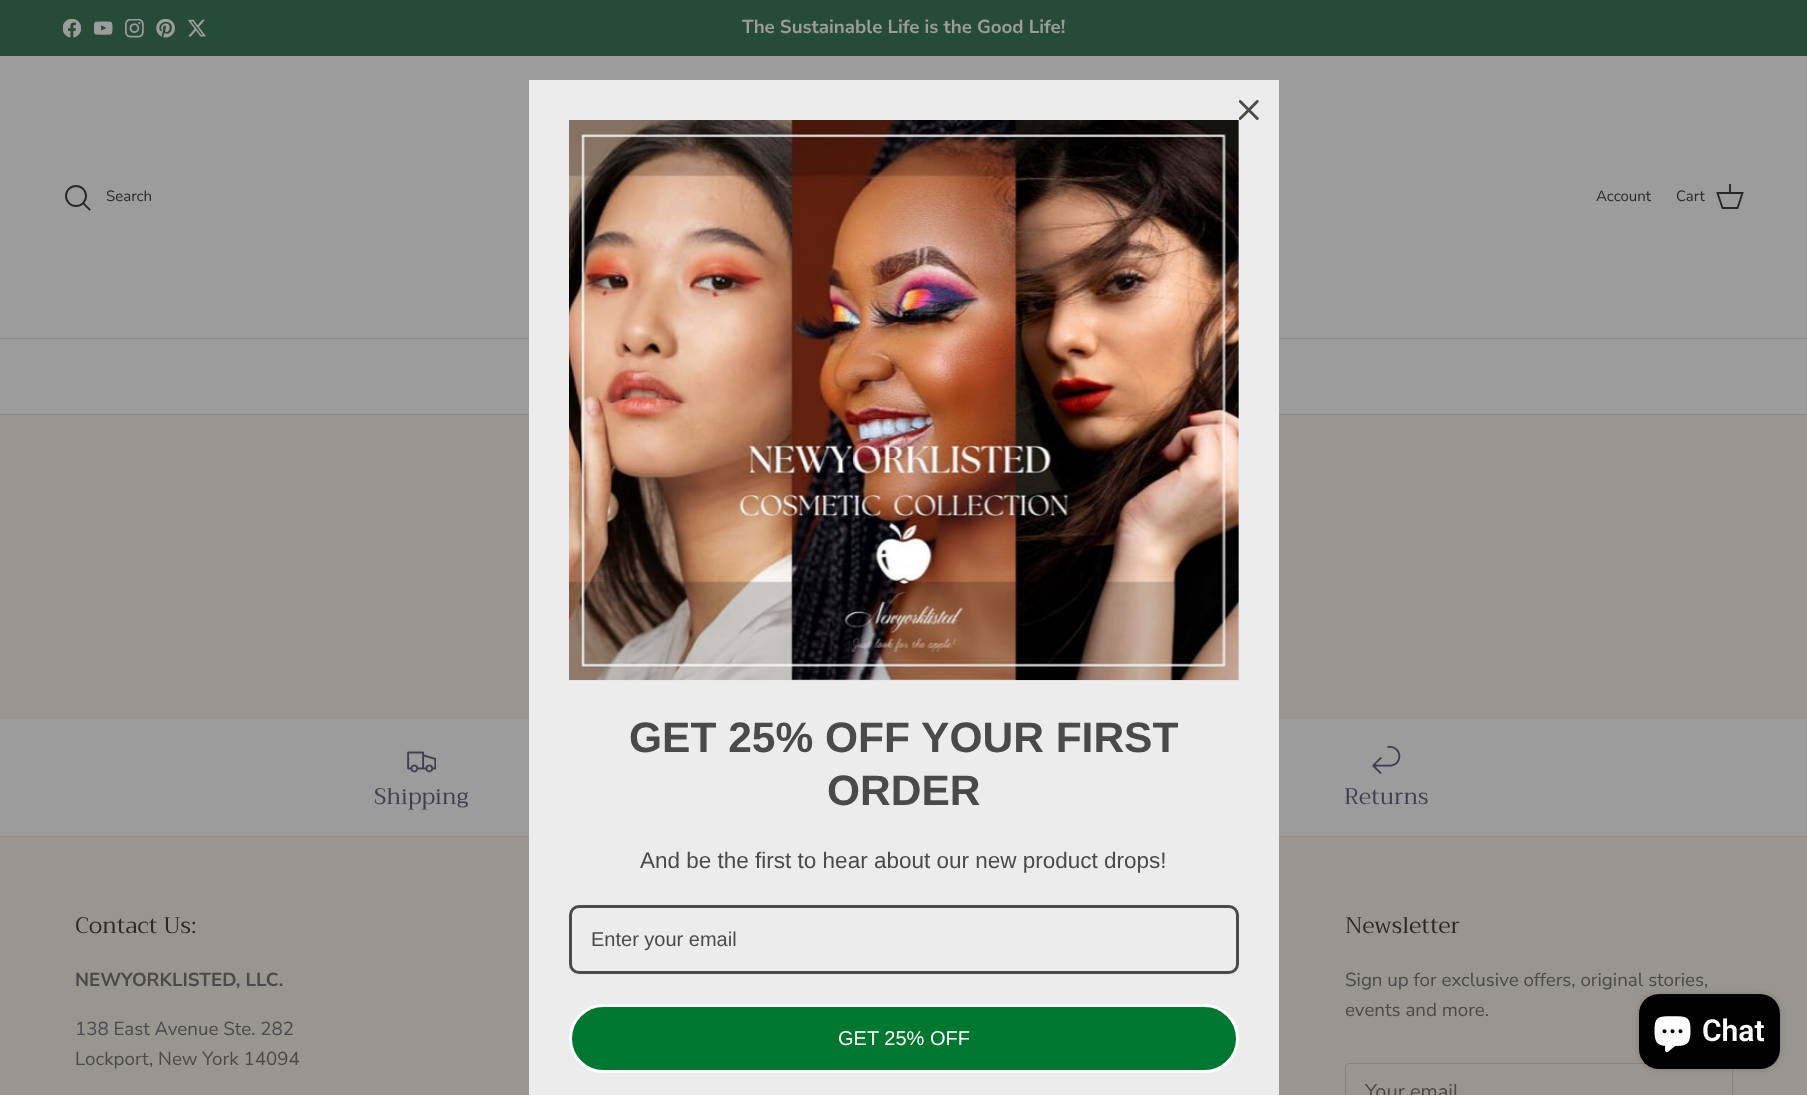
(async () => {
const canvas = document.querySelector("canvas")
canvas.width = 1807
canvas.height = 1095
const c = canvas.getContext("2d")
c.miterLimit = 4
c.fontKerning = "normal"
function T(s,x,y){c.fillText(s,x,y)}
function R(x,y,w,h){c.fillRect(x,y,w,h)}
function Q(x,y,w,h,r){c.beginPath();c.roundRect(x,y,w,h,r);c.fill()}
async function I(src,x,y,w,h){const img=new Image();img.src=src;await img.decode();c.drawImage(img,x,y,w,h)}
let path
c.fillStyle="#99958f"
R(0,0,1807,1095)
c.fillStyle="#264c37"
R(0,0,1807,56)
await I("1.png",63,19,18,19)
await I("2.png",94,21,19,14)
await I("3.png",125,19,19,19)
await I("4.png",156,19,19,19)
await I("5.png",188,19,18,18)
c.font="bold 18.75px Nunito Sans"
c.fillStyle="#9c9c9c"
T("The Sustainable Life is the Good Life!",742,33)
R(0,56,1807,282)
c.fillStyle="#8c8e90"
R(0,338,1807,1)
c.beginPath()
c.arc(76,196,10,0,7)
c.strokeStyle="#282828"
c.lineWidth=1.9
c.stroke()
c.font="15px Nunito Sans"
c.fillStyle="#282828"
T("Search",106,201)
path = new Path2D("M83.5 203.5l6 6")
c.lineCap="square"
c.stroke(path)
T("Account",1596,201)
T("Cart",1676,201)
path = new Path2D("M1717.5 193h25l-5 15h-15z")
c.lineCap="butt"
c.stroke(path)
c.fillStyle="#282828f2"
R(1729,184,2,9)
c.fillStyle="#8c8e90"
R(0,414,1807,1)
c.fillStyle="#9c9c9c"
R(0,339,1807,75)
R(0,719,1807,117)
c.fillStyle="#948c80"
R(0,836,1807,1)
c.fillStyle="#ececec"
R(529,80,750,1015)
await I("6.png",1239,100,20,20)
await I("7.png",569,120,670,561)
c.font="bold 42.5px Liberation Sans"
c.fillStyle="#4a4a4a"
T("GET 25% OFF YOUR FIRST",629,752)
T("ORDER",827,805)
c.font="22.5px Liberation Sans"
T("And be the first to hear about our new product drops!",640,868)
c.beginPath()
c.roundRect(570.5,906.5,667,66,8.5)
c.strokeStyle="#4a4a4a"
c.lineWidth=3
c.stroke()
c.font="20px Liberation Sans"
T("Enter your email",591,946)
c.fillStyle="#007730"
c.beginPath()
c.roundRect(570.5,1005.5,667,66,33)
c.fill()
c.strokeStyle="#fff"
c.stroke()
c.fillStyle="#fff"
T("GET 25% OFF",838,1045)
await I("8.png",407,751,29,22)
c.font="22.5px Trirong"
c.fillStyle="#3f3f4e"
T("Shipping",374,804)
await I("9.png",1372,745,29,29)
T("Returns",1344,804)
c.fillStyle="#282828"
T("Contact Us:",75,933)
c.font="bold 18.75px Nunito Sans"
c.fillStyle="#4a4a4a"
T("NEWYORKLISTED, LLC.",75,986)
c.font="18.75px Nunito Sans"
T("138 East Avenue Ste. 282",75,1035)
T("Lockport, New York 14094",75,1065)
c.font="22.5px Trirong"
c.fillStyle="#282828"
T("Newsletter",1345,933)
c.font="18.75px Nunito Sans"
c.fillStyle="#4a4a4a"
T("Sign up for exclusive offers, original stories,",1345,986)
T("events and more.",1345,1016)
c.beginPath()
c.roundRect(1345.5,1063.5,387,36,3.5)
c.strokeStyle="#86837e"
c.lineWidth=1
c.stroke()
c.font="20px Nunito Sans"
T("Your email",1365,1098)
c.fillStyle="#00000026"
c.filter="blur(3px)"
c.beginPath()
c.roundRect(1639,994,141,75,20)
c.fill()
c.filter="none"
c.fillStyle="#000"
Q(1639,994,141,75,20)
await I("10.png",1654,1016,37,37)
c.font="600 30px Roboto"
c.fillStyle="#fff"
T("Chat",1702,1041)
})()
